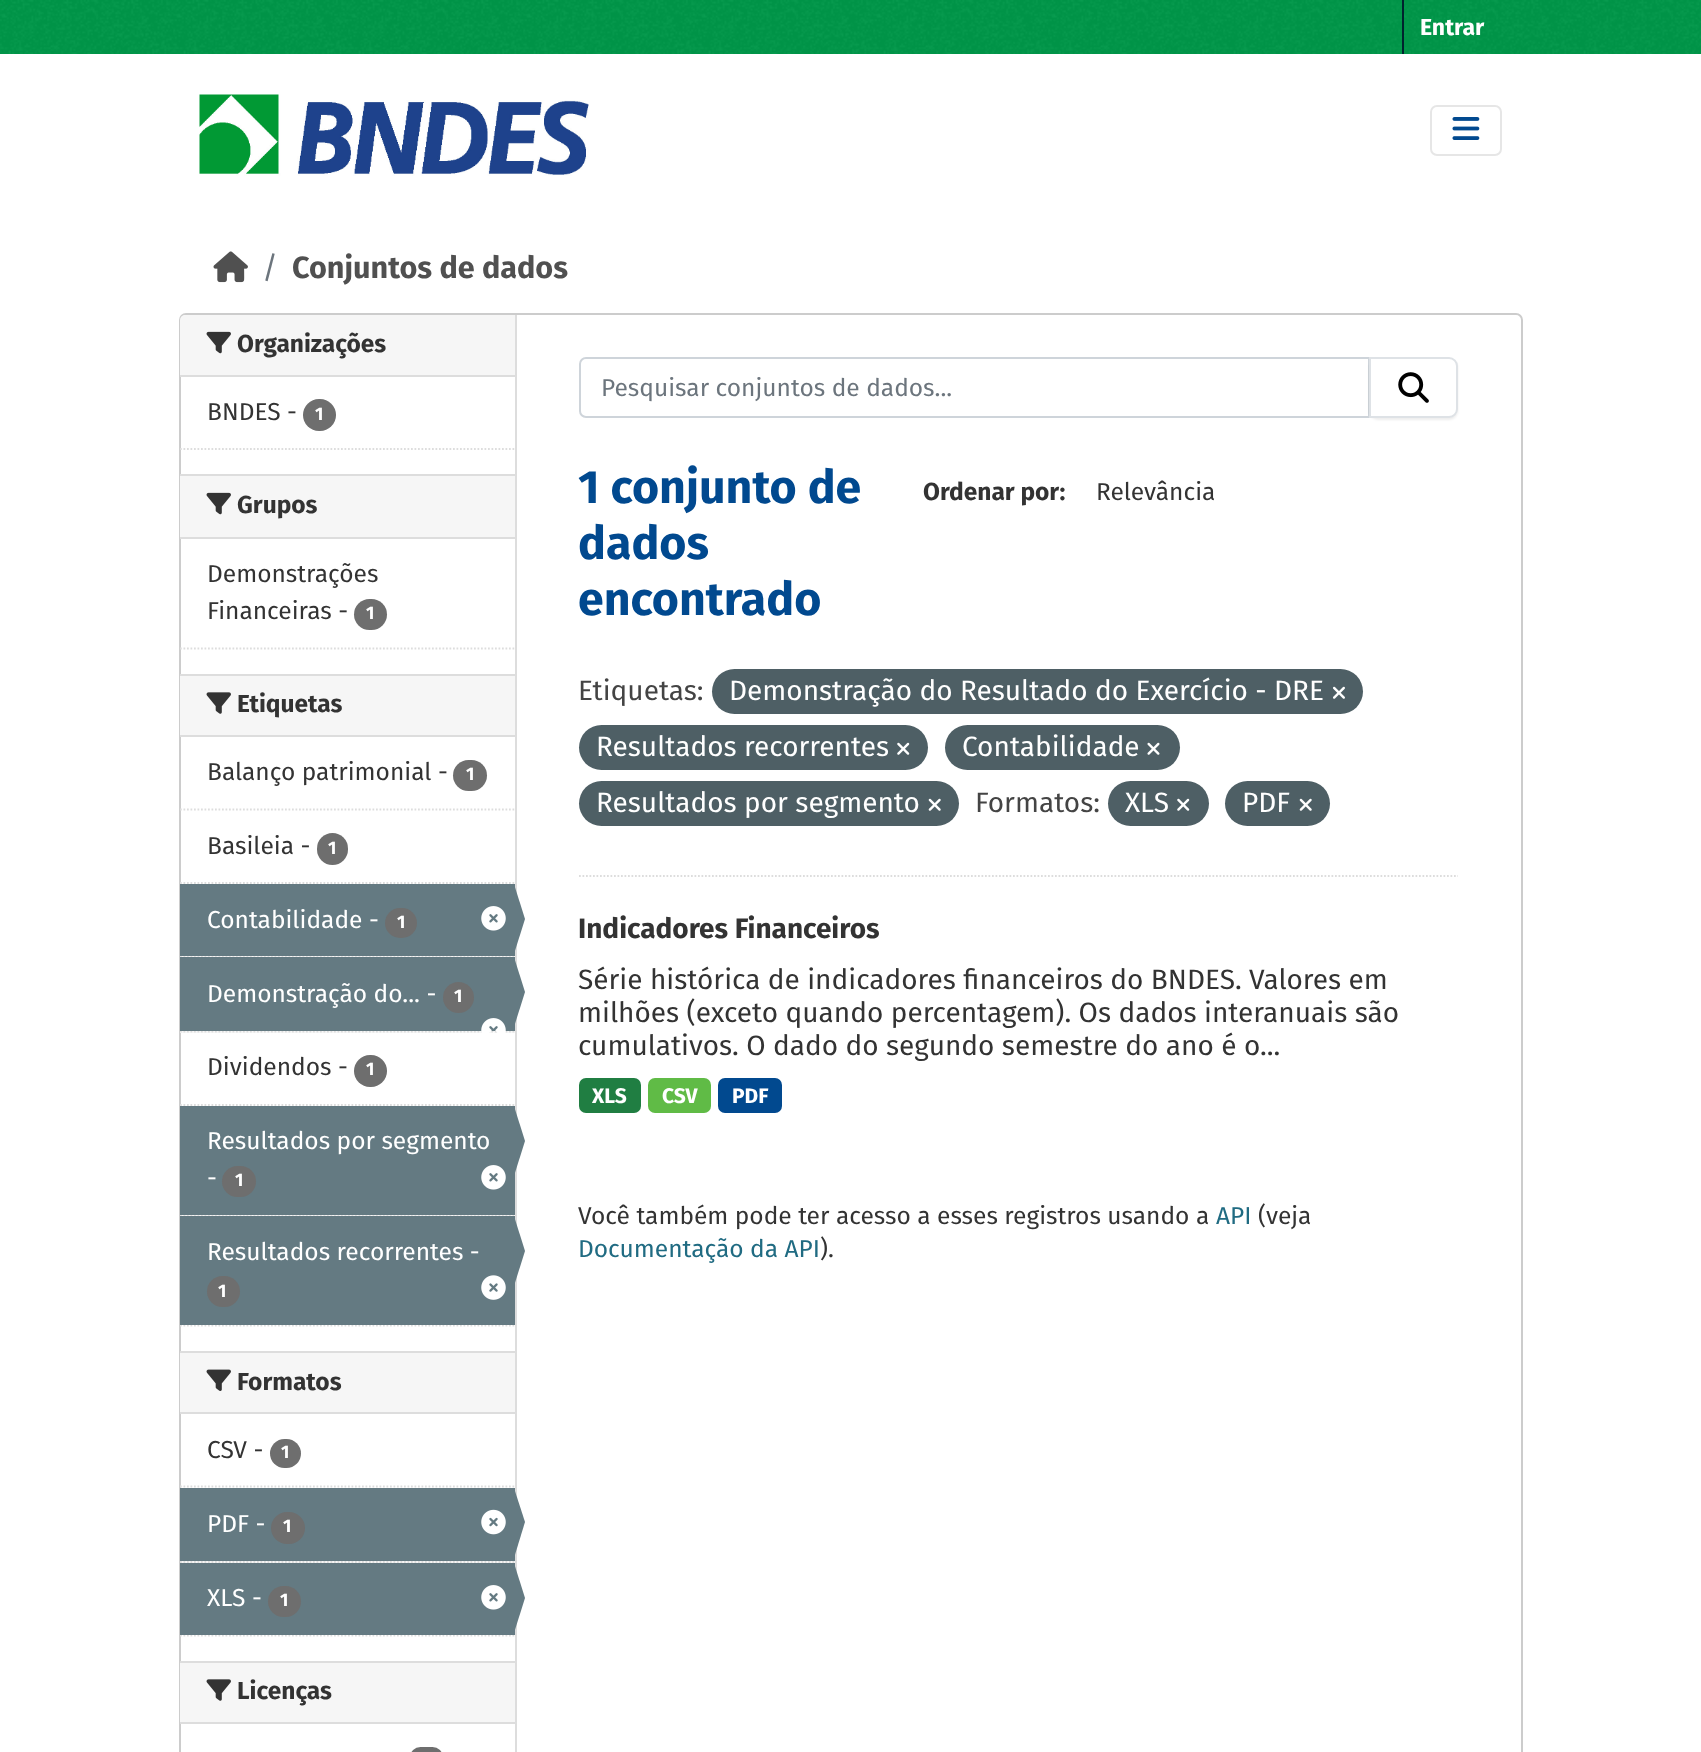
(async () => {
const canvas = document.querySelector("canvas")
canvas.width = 1701
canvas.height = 1752
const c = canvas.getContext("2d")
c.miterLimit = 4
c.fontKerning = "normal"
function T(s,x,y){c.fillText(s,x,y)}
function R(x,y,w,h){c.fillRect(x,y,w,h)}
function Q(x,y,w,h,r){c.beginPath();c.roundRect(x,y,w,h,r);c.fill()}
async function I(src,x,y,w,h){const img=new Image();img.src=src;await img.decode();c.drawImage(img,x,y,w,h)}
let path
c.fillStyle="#fff"
R(0,0,1701,1752)
c.fillStyle="#00984a"
R(0,0,1701,54)
await I("1.png",0,0,1701,54)
c.fillStyle="#00232e"
R(1402,0,2,54)
c.font="bold 23px Fira Sans"
c.fillStyle="#fff"
T("Entrar",1420,35)
await I("2.png",199,94,390,82)
c.beginPath()
c.roundRect(1431,106,70,49,6)
c.strokeStyle="#e6e6e6"
c.lineWidth=2
c.stroke()
await I("3.png",1452,117,28,23)
await I("4.png",213,251,35,32)
c.font="30.6px Fira Sans"
c.fillStyle="#6c757d"
T("/",262,278)
c.font="bold 30.6px Fira Sans"
c.fillStyle="#505050"
T("Conjuntos de dados",292,278)
c.beginPath()
c.roundRect(180,314,1342,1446,6)
c.strokeStyle="#ccc"
c.stroke()
c.fillStyle="#f6f6f6"
c.beginPath()
c.roundRect(180,315,335,61,[5,0,0,0])
c.fill()
c.fillStyle="#ddd"
R(180,375,335,2)
await I("5.png",206,331,25,23)
c.font="bold 24.5px Fira Sans"
c.fillStyle="#333"
T("Organizações",237,352)
c.font="24.5px Fira Sans"
T("BNDES -",207,420)
c.fillStyle="#6e6e6e"
Q(303,399,33,32,16)
c.font="bold 18px Fira Sans"
c.fillStyle="#fff"
T("1",315,420)
path = new Path2D("M180 449h334.5")
c.strokeStyle="#ddd"
c.lineWidth=1.8
c.setLineDash([1.75,1.75])
c.stroke(path)
c.fillStyle="#f6f6f6"
R(180,476,335,61)
c.fillStyle="#ddd"
R(180,474,335,2)
R(180,537,335,2)
await I("5.png",206,492,25,23)
c.font="bold 24.5px Fira Sans"
c.fillStyle="#333"
T("Grupos",237,513)
c.font="24.5px Fira Sans"
T("Demonstrações",207,582)
T("Financeiras -",207,619)
c.fillStyle="#6e6e6e"
Q(354,599,33,31,15.5)
c.font="bold 18px Fira Sans"
c.fillStyle="#fff"
T("1",366,619)
path = new Path2D("M180 648.5h334.5")
c.stroke(path)
c.fillStyle="#f6f6f6"
R(180,676,335,59)
c.fillStyle="#ddd"
R(180,674,335,2)
R(180,735,335,2)
await I("6.png",206,692,25,22)
c.font="bold 24.5px Fira Sans"
c.fillStyle="#333"
T("Etiquetas",237,712)
path = new Path2D("M180 809.5h334.5")
c.stroke(path)
c.font="24.5px Fira Sans"
T("Balanço patrimonial -",207,780)
c.fillStyle="#6e6e6e"
Q(453,760,34,31,15.5)
c.font="bold 18px Fira Sans"
c.fillStyle="#fff"
T("1",466,780)
path = new Path2D("M180 883h334.5")
c.stroke(path)
c.font="24.5px Fira Sans"
c.fillStyle="#333"
T("Basileia -",207,854)
c.fillStyle="#6e6e6e"
Q(317,833,31,32,15.5)
c.font="bold 18px Fira Sans"
c.fillStyle="#fff"
T("1",328,854)
c.fillStyle="#f6f6f6"
R(181,956,334,1)
path = new Path2D("M180 956.5h334.5")
c.stroke(path)
c.fillStyle="#647a82"
R(180,884,335,72)
c.font="24.5px Fira Sans"
c.fillStyle="#fff"
T("Contabilidade -",207,928)
c.fillStyle="#6e6e6e"
Q(385,908,32,30,15)
c.font="bold 18px Fira Sans"
c.fillStyle="#fff"
T("1",397,928)
await I("7.png",481,906,25,25)
c.fillStyle="#ddd"
R(515,315,2,1437)
c.fillStyle="#647a82"
path = new Path2D("M514 954v-70l11 35z")
c.fill(path)
c.fillStyle="#f6f6f6"
R(180,1031,335,2)
path = new Path2D("M180 1031.5h334.5")
c.stroke(path)
c.fillStyle="#647a82"
R(180,957,335,74)
c.font="24.5px Fira Sans"
c.fillStyle="#fff"
T("Demonstração do... -",207,1002)
c.fillStyle="#6e6e6e"
c.beginPath()
c.arc(458.5,997.5,15.5,0,7)
c.fill()
c.font="bold 18px Fira Sans"
c.fillStyle="#fff"
T("1",454,1002)
c.fillStyle="#647a82"
path = new Path2D("M514 1027v-70l11 35z")
c.fill(path)
await I("8.png",481,1018,25,15)
path = new Path2D("M180 1105h334.5")
c.stroke(path)
c.font="24.5px Fira Sans"
c.fillStyle="#333"
T("Dividendos -",207,1075)
c.fillStyle="#6e6e6e"
Q(354,1055,33,32,16)
c.font="bold 18px Fira Sans"
c.fillStyle="#fff"
T("1",366,1075)
c.fillStyle="#f6f6f6"
R(181,1215,334,1)
path = new Path2D("M180 1215.5h334.5")
c.stroke(path)
c.fillStyle="#647a82"
R(180,1106,335,109)
c.font="24.5px Fira Sans"
c.fillStyle="#fff"
T("Resultados por segmento",207,1149)
c.fillStyle="#647a82"
path = new Path2D("M514 1176v-70l11 35z")
c.fill(path)
c.fillStyle="#fff"
T("-",207,1186)
c.fillStyle="#6e6e6e"
Q(222,1166,34,31,15.5)
c.font="bold 18px Fira Sans"
c.fillStyle="#fff"
T("1",235,1186)
await I("7.png",481,1165,25,25)
path = new Path2D("M180 1325.5h334.5")
c.stroke(path)
c.fillStyle="#647a82"
R(180,1216,335,109)
c.font="24.5px Fira Sans"
c.fillStyle="#fff"
T("Resultados recorrentes -",207,1260)
c.fillStyle="#647a82"
path = new Path2D("M514 1286v-70l11 35z")
c.fill(path)
c.fillStyle="#6e6e6e"
Q(207,1276,33,31,15.5)
c.font="bold 18px Fira Sans"
c.fillStyle="#fff"
T("1",218,1297)
await I("9.png",481,1275,25,25)
c.fillStyle="#f6f6f6"
R(180,1353,335,59)
c.fillStyle="#ddd"
R(180,1351,335,2)
R(180,1412,335,2)
await I("10.png",206,1369,25,22)
c.font="bold 24.5px Fira Sans"
c.fillStyle="#333"
T("Formatos",237,1390)
path = new Path2D("M180 1486.5h334.5")
c.stroke(path)
c.font="24.5px Fira Sans"
T("CSV -",207,1458)
c.fillStyle="#6e6e6e"
Q(270,1439,31,29,14.5)
c.font="bold 18px Fira Sans"
c.fillStyle="#fff"
T("1",281,1458)
c.fillStyle="#f6f6f6"
R(180,1561,335,2)
path = new Path2D("M180 1562h334.5")
c.stroke(path)
c.fillStyle="#647a82"
R(180,1488,335,73)
c.font="24.5px Fira Sans"
c.fillStyle="#fff"
T("PDF -",207,1532)
c.fillStyle="#6e6e6e"
Q(271,1512,34,32,16)
c.font="bold 18px Fira Sans"
c.fillStyle="#fff"
T("1",283,1532)
await I("11.png",481,1509,25,26)
c.fillStyle="#647a82"
path = new Path2D("M514 1558v-70l11 34z")
c.fill(path)
path = new Path2D("M180 1635.5h334.5")
c.stroke(path)
R(180,1563,335,72)
c.font="24.5px Fira Sans"
c.fillStyle="#fff"
T("XLS -",207,1606)
c.fillStyle="#6e6e6e"
Q(268,1586,33,31,15.5)
c.font="bold 18px Fira Sans"
c.fillStyle="#fff"
T("1",280,1606)
await I("7.png",481,1585,25,25)
c.fillStyle="#647a82"
path = new Path2D("M514 1633v-70l11 35z")
c.fill(path)
c.fillStyle="#f6f6f6"
R(180,1663,335,59)
c.fillStyle="#ddd"
R(180,1661,335,2)
R(180,1722,335,2)
await I("6.png",206,1679,25,22)
c.font="bold 24.5px Fira Sans"
c.fillStyle="#333"
T("Licenças",237,1699)
c.fillStyle="#6e6e6e"
Q(410,1747,33,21,15.5)
path = new Path2D("M579 876h879")
c.stroke(path)
c.beginPath()
c.roundRect(580,358,789,59,[6,0,0,6])
c.strokeStyle="#ced4da"
c.lineWidth=2
c.setLineDash([])
c.stroke()
c.font="24.5px Fira Sans"
c.fillStyle="#6c757d"
T("Pesquisar conjuntos de dados...",601,396)
c.fillStyle="#00000012"
c.filter="blur(1px)"
c.beginPath()
c.roundRect(1369,359,89,61,9)
c.fill()
c.filter="none"
c.fillStyle="#fff"
c.beginPath()
c.roundRect(1370,358,87,59,[0,8,8,0])
c.fill()
c.strokeStyle="#dee2e6"
c.stroke()
await I("12.png",1398,372,31,31)
c.font="bold 46.5px Fira Sans"
c.fillStyle="#01498f"
T("1 conjunto de",578,503)
T("dados",578,559)
T("encontrado",578,615)
c.font="bold 24.5px Fira Sans"
c.fillStyle="#333"
T("Ordenar por:",923,500)
c.font="24.5px Fira Sans"
T("Relevância",1096,500)
c.font="28px Fira Sans"
c.fillStyle="#444"
T("Etiquetas:",578,700)
c.fillStyle="#4e5f65"
Q(712,669,651,45,22.5)
c.fillStyle="#fff"
T("Demonstração do Resultado do Exercício - DRE",729,700)
await I("13.png",1333,686,12,13)
c.fillStyle="#4e5f65"
Q(579,725,349,45,22.5)
c.fillStyle="#fff"
T("Resultados recorrentes",596,756)
await I("14.png",897,742,13,13)
c.fillStyle="#4e5f65"
Q(945,725,235,45,22.5)
c.fillStyle="#fff"
T("Contabilidade",962,756)
await I("15.png",1147,742,13,13)
c.fillStyle="#4e5f65"
Q(579,781,380,45,22.5)
c.fillStyle="#fff"
T("Resultados por segmento",596,812)
await I("16.png",928,798,13,13)
c.fillStyle="#444"
T("Formatos:",975,812)
c.fillStyle="#4e5f65"
Q(1108,781,101,45,22.5)
c.fillStyle="#fff"
T("XLS",1125,812)
await I("14.png",1177,798,13,13)
c.fillStyle="#4e5f65"
Q(1225,781,105,45,22.5)
c.fillStyle="#fff"
T("PDF",1242,812)
await I("16.png",1299,798,13,13)
c.font="bold 28px Fira Sans"
c.fillStyle="#333"
T("Indicadores Financeiros",578,938)
c.font="28px Fira Sans"
T("Série histórica de indicadores financeiros do BNDES. Valores em",578,989)
T("milhões (exceto quando percentagem). Os dados interanuais são",578,1022)
T("cumulativos. O dado do segundo semestre do ano é o...",578,1055)
c.fillStyle="#207e42"
Q(579,1078,62,35,7)
c.font="bold 21px Fira Sans"
c.fillStyle="#fff"
T("XLS",592,1103)
c.fillStyle="#60bb46"
Q(648,1078,63,35,7)
c.fillStyle="#fff"
T("CSV",662,1103)
c.fillStyle="#01498f"
Q(718,1078,64,35,7)
c.fillStyle="#fff"
T("PDF",732,1103)
c.font="24.5px Fira Sans"
c.fillStyle="#333"
T("Você também pode ter acesso a esses registros usando a",578,1224)
c.fillStyle="#206b82"
T("API",1216,1224)
c.fillStyle="#333"
T("(veja",1258,1224)
c.fillStyle="#206b82"
T("Documentação da API",578,1257)
c.fillStyle="#333"
T(").",820,1257)
})()
